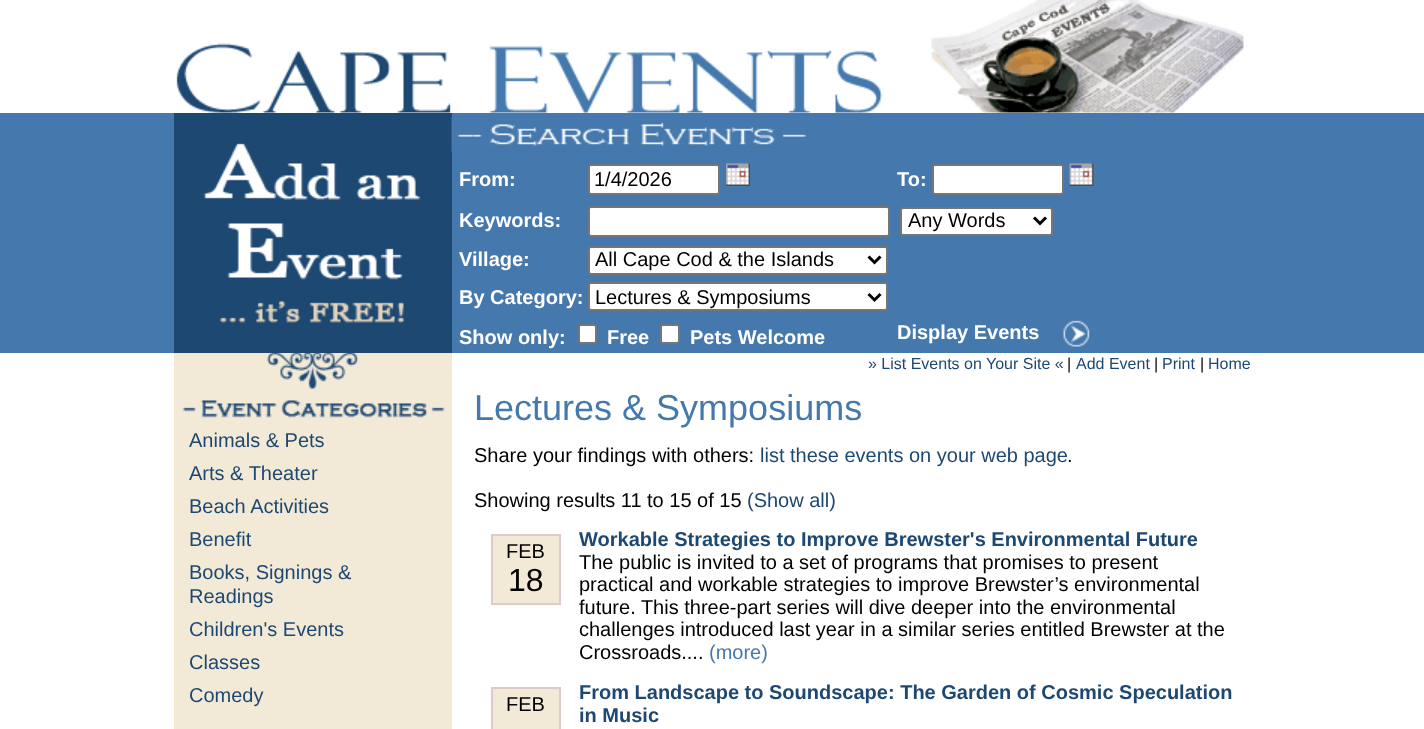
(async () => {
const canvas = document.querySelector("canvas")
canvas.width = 1424
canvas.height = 729
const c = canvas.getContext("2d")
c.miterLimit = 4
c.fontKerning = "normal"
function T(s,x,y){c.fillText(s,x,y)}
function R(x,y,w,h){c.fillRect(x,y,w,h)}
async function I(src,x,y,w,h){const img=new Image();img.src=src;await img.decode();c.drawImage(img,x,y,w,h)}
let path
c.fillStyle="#fff"
R(0,0,1424,729)
await I("1.png",176,43,707,70)
await I("2.png",931,0,313,113)
c.fillStyle="#4579ad"
R(0,113,1424,240)
c.fillStyle="#1d4872"
R(174,113,278,240)
await I("3.png",203,143,218,180)
await I("4.png",451,117,355,35)
c.font="bold 20px Liberation Sans"
c.fillStyle="#fff"
T("From:",459,186)
c.beginPath()
c.roundRect(589,165,130,29,2)
c.fill()
c.strokeStyle="#767676"
c.lineWidth=2
c.stroke()
c.font="20px Liberation Sans"
c.fillStyle="#000"
T("1/4/2026",594,186)
await I("5.png",726,163,24,23)
c.font="bold 20px Liberation Sans"
c.fillStyle="#fff"
T("To:",897,186)
c.beginPath()
c.roundRect(933,165,130,29,2)
c.fill()
c.stroke()
await I("6.png",1069,163,25,23)
T("Keywords:",459,227)
c.beginPath()
c.roundRect(589,207,300,29,2)
c.fill()
c.stroke()
c.beginPath()
c.roundRect(901,208,151,27,2)
c.fill()
c.stroke()
path = new Path2D("M1034 217.5l6 6l6-6")
c.strokeStyle="#000"
c.lineWidth=3
c.stroke(path)
c.font="20px Liberation Sans"
c.fillStyle="#000"
T("Any Words",908,227)
c.font="bold 20px Liberation Sans"
c.fillStyle="#fff"
T("Village:",459,266)
c.beginPath()
c.roundRect(589,247,298,27,2)
c.fill()
c.strokeStyle="#767676"
c.lineWidth=2
c.stroke()
path = new Path2D("M868.5 256.5l6 6l6-6")
c.strokeStyle="#000"
c.lineWidth=3
c.stroke(path)
c.font="20px Liberation Sans"
c.fillStyle="#000"
T("All Cape Cod & the Islands",595,266)
c.font="bold 20px Liberation Sans"
c.fillStyle="#fff"
T("By Category:",459,304)
c.beginPath()
c.roundRect(589,283,298,27,2)
c.fill()
c.strokeStyle="#767676"
c.lineWidth=2
c.stroke()
path = new Path2D("M868.5 294l6 6l6-6")
c.strokeStyle="#000"
c.lineWidth=3
c.stroke(path)
c.font="20px Liberation Sans"
c.fillStyle="#000"
T("Lectures & Symposiums",595,304)
c.font="bold 20px Liberation Sans"
c.fillStyle="#fff"
T("Show only:",459,344)
c.beginPath()
c.roundRect(579,325,17,18,2)
c.fill()
c.strokeStyle="#767676"
c.lineWidth=2
c.stroke()
T("Free",607,344)
c.beginPath()
c.roundRect(661,325,18,18,2)
c.fill()
c.stroke()
T("Pets Welcome",690,344)
T("Display Events",897,339)
await I("7.png",1063,320,27,27)
c.fillStyle="#f2e9d6"
R(174,353,278,376)
await I("8.png",264,353,98,36)
await I("9.png",182,400,263,18)
c.font="20px Liberation Sans"
c.fillStyle="#1d4872"
T("Animals & Pets",189,447)
T("Arts & Theater",189,480)
T("Beach Activities",189,513)
T("Benefit",189,546)
T("Books, Signings &",189,579)
T("Readings",189,603)
T("Children's Events",189,636)
T("Classes",189,669)
T("Comedy",189,702)
c.font="16px Liberation Sans"
T("» List Events on Your Site «",868,369)
c.fillStyle="#000"
T("|",1067,369)
c.fillStyle="#1d4872"
T("Add Event",1076,369)
c.fillStyle="#000"
T("|",1154,369)
c.fillStyle="#1d4872"
T("Print",1162,369)
c.fillStyle="#000"
T("|",1200,369)
c.fillStyle="#1d4872"
T("Home",1208,369)
c.font="36px Liberation Sans"
c.fillStyle="#4579ad"
T("Lectures & Symposiums",474,420)
c.font="20px Liberation Sans"
c.fillStyle="#000"
T("Share your findings with others:",474,462)
c.fillStyle="#1d4872"
T("list these events on your web page",760,462)
c.fillStyle="#000"
T(".",1067,462)
T("Showing results 11 to 15 of 15",474,507)
c.fillStyle="#1d4872"
T("(Show all)",747,507)
c.fillStyle="#f2e9d6"
c.beginPath()
c.rect(492,535,68,69)
c.fill()
c.strokeStyle="#dccbc8"
c.stroke()
c.fillStyle="#000"
T("FEB",506,558)
c.font="32px Liberation Sans"
T("18",508,591)
c.font="bold 20px Liberation Sans"
c.fillStyle="#1d4872"
T("Workable Strategies to Improve Brewster's Environmental Future",579,546)
c.font="20px Liberation Sans"
c.fillStyle="#000"
T("The public is invited to a set of programs that promises to present",579,569)
T("practical and workable strategies to improve Brewster’s environmental",579,591)
T("future. This three-part series will dive deeper into the environmental",579,614)
T("challenges introduced last year in a similar series entitled Brewster at the",579,636)
T("Crossroads....",579,659)
c.fillStyle="#4579ad"
T("(more)",709,659)
c.fillStyle="#f2e9d6"
c.beginPath()
c.rect(492,688,68,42)
c.fill()
c.stroke()
c.fillStyle="#000"
T("FEB",506,711)
c.font="bold 20px Liberation Sans"
c.fillStyle="#1d4872"
T("From Landscape to Soundscape: The Garden of Cosmic Speculation",579,699)
T("in Music",579,722)
})()
